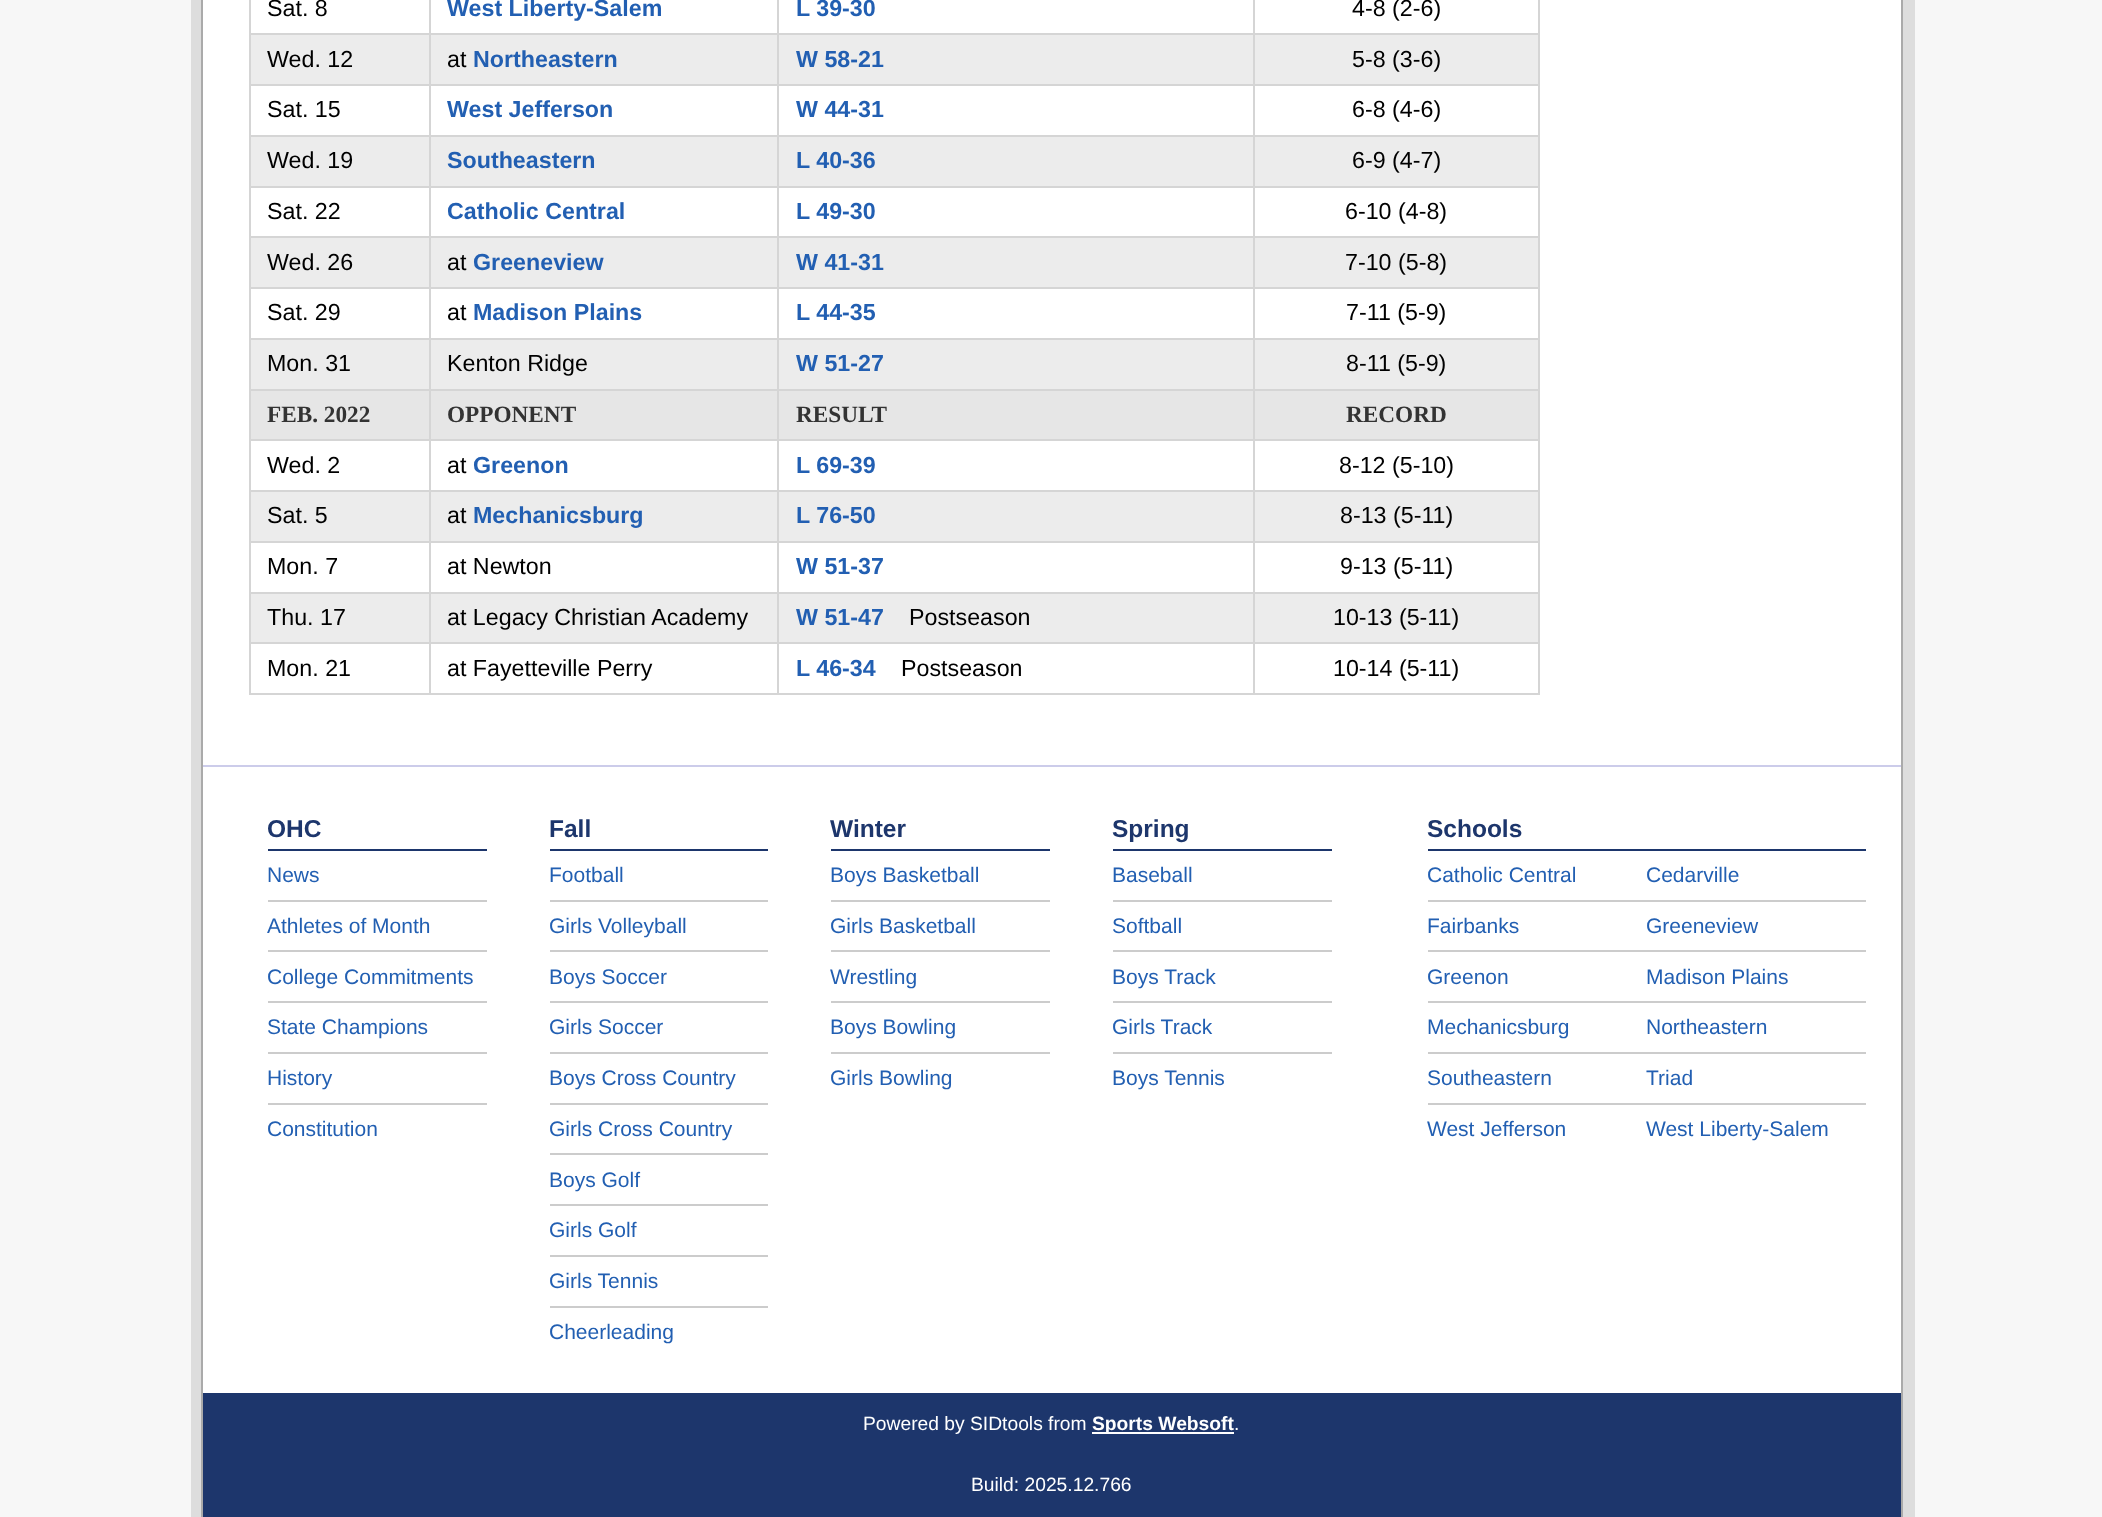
(async () => {
const canvas = document.querySelector("canvas")
canvas.width = 2102
canvas.height = 1517
const c = canvas.getContext("2d")
c.miterLimit = 4
c.fontKerning = "normal"
function T(s,x,y){c.fillText(s,x,y)}
function R(x,y,w,h){c.fillRect(x,y,w,h)}
c.fillStyle="#f7f7f7"
R(0,0,2102,1517)
c.fillStyle="#ddd"
R(191,0,1724,1517)
c.fillStyle="#fff"
R(203,0,1698,1393)
c.fillStyle="#aaa"
R(1901,0,2,1517)
R(201,0,2,1517)
c.fillStyle="#d5d5d5"
R(249,693,1291,2)
c.font="23.25px Liberation Sans"
c.fillStyle="#000"
T("Sat. 8",267,16)
c.fillStyle="#d5d5d5"
R(1253,33,287,2)
c.fillStyle="#ececec"
R(251,35,1287,49)
c.fillStyle="#d5d5d5"
R(1253,84,287,2)
R(1253,135,287,2)
c.fillStyle="#ececec"
R(251,137,1287,49)
c.fillStyle="#d5d5d5"
R(1253,186,287,2)
R(1253,236,287,2)
c.fillStyle="#ececec"
R(251,238,1287,49)
c.fillStyle="#d5d5d5"
R(1253,287,287,2)
R(1253,338,287,2)
c.fillStyle="#ececec"
R(251,340,1287,49)
c.fillStyle="#d5d5d5"
R(1253,389,287,2)
R(1253,439,287,2)
R(1253,490,287,2)
c.fillStyle="#ececec"
R(251,492,1287,49)
c.fillStyle="#d5d5d5"
R(1253,541,287,2)
R(1253,592,287,2)
c.fillStyle="#ececec"
R(251,594,1287,48)
c.fillStyle="#d5d5d5"
R(1253,642,287,2)
R(1253,642,2,53)
R(777,642,478,2)
R(1253,592,2,52)
R(777,592,478,2)
R(1253,541,2,52)
R(777,541,478,2)
R(1253,490,2,53)
R(777,490,478,2)
R(1253,439,2,53)
R(777,439,478,2)
R(1253,389,2,52)
R(777,389,478,2)
R(1253,338,2,52)
R(777,338,478,2)
R(1253,287,2,53)
R(777,287,478,2)
R(1253,236,2,53)
R(777,236,478,2)
R(1253,186,2,52)
R(777,186,478,2)
R(1253,135,2,52)
R(777,135,478,2)
R(1253,84,2,53)
R(777,84,478,2)
R(1253,33,2,53)
R(777,33,478,2)
R(777,642,2,53)
R(429,642,350,2)
R(777,592,2,52)
R(429,592,350,2)
R(777,541,2,52)
R(429,541,350,2)
R(777,490,2,53)
R(429,490,350,2)
R(777,439,2,53)
R(429,439,350,2)
R(777,389,2,52)
R(429,389,350,2)
R(777,338,2,52)
R(429,338,350,2)
R(777,287,2,53)
R(429,287,350,2)
R(777,236,2,53)
R(429,236,350,2)
R(777,186,2,52)
R(429,186,350,2)
R(777,135,2,52)
R(429,135,350,2)
R(777,84,2,53)
R(429,84,350,2)
R(777,33,2,53)
R(429,33,350,2)
R(429,642,2,53)
R(249,642,182,2)
R(429,592,2,52)
R(249,592,182,2)
R(429,541,2,52)
R(249,541,182,2)
R(429,490,2,53)
R(249,490,182,2)
R(429,439,2,53)
R(249,439,182,2)
R(429,389,2,52)
R(249,389,182,2)
R(429,338,2,52)
R(249,338,182,2)
R(429,287,2,53)
R(249,287,182,2)
R(429,236,2,53)
R(249,236,182,2)
R(429,186,2,52)
R(249,186,182,2)
R(429,135,2,52)
R(249,135,182,2)
R(429,84,2,53)
R(249,84,182,2)
R(429,33,2,53)
R(249,33,182,2)
R(429,0,2,35)
c.font="bold 23.25px Liberation Sans"
c.fillStyle="#225fb2"
T("West Liberty-Salem",447,16)
c.fillStyle="#d5d5d5"
R(777,0,2,35)
c.fillStyle="#225fb2"
T("L 39-30",796,16)
c.fillStyle="#d5d5d5"
R(1253,0,2,35)
c.font="23.25px Liberation Sans"
c.fillStyle="#000"
T("4-8 (2-6)",1352,16)
c.fillStyle="#d5d5d5"
R(249,642,2,53)
R(249,592,2,52)
R(249,541,2,52)
R(249,490,2,53)
R(249,439,2,53)
R(249,389,2,52)
R(249,338,2,52)
R(249,287,2,53)
R(249,236,2,53)
R(249,186,2,52)
R(249,135,2,52)
R(249,84,2,53)
R(249,0,2,86)
c.fillStyle="#000"
T("Wed. 12",267,67)
T("at",447,67)
c.font="bold 23.25px Liberation Sans"
c.fillStyle="#225fb2"
T("Northeastern",473,67)
T("W 58-21",796,67)
c.fillStyle="#d5d5d5"
R(1538,642,2,53)
R(1538,592,2,52)
R(1538,541,2,52)
R(1538,490,2,53)
R(1538,439,2,53)
R(1538,389,2,52)
R(1538,338,2,52)
R(1538,287,2,53)
R(1538,236,2,53)
R(1538,186,2,52)
R(1538,135,2,52)
R(1538,84,2,53)
R(1538,0,2,86)
c.font="23.25px Liberation Sans"
c.fillStyle="#000"
T("5-8 (3-6)",1352,67)
T("Sat. 15",267,117)
c.font="bold 23.25px Liberation Sans"
c.fillStyle="#225fb2"
T("West Jefferson",447,117)
T("W 44-31",796,117)
c.font="23.25px Liberation Sans"
c.fillStyle="#000"
T("6-8 (4-6)",1352,117)
T("Wed. 19",267,168)
c.font="bold 23.25px Liberation Sans"
c.fillStyle="#225fb2"
T("Southeastern",447,168)
T("L 40-36",796,168)
c.font="23.25px Liberation Sans"
c.fillStyle="#000"
T("6-9 (4-7)",1352,168)
T("Sat. 22",267,219)
c.font="bold 23.25px Liberation Sans"
c.fillStyle="#225fb2"
T("Catholic Central",447,219)
T("L 49-30",796,219)
c.font="23.25px Liberation Sans"
c.fillStyle="#000"
T("6-10 (4-8)",1345,219)
T("Wed. 26",267,270)
T("at",447,270)
c.font="bold 23.25px Liberation Sans"
c.fillStyle="#225fb2"
T("Greeneview",473,270)
T("W 41-31",796,270)
c.font="23.25px Liberation Sans"
c.fillStyle="#000"
T("7-10 (5-8)",1345,270)
T("Sat. 29",267,320)
T("at",447,320)
c.font="bold 23.25px Liberation Sans"
c.fillStyle="#225fb2"
T("Madison Plains",473,320)
T("L 44-35",796,320)
c.font="23.25px Liberation Sans"
c.fillStyle="#000"
T("7-11 (5-9)",1346,320)
T("Mon. 31",267,371)
T("Kenton Ridge",447,371)
c.font="bold 23.25px Liberation Sans"
c.fillStyle="#225fb2"
T("W 51-27",796,371)
c.font="23.25px Liberation Sans"
c.fillStyle="#000"
T("8-11 (5-9)",1346,371)
c.fillStyle="#e6e6e6"
R(251,391,178,48)
c.font="bold 23.25px Liberation Serif"
c.fillStyle="#333"
T("FEB. 2022",267,422)
c.fillStyle="#e6e6e6"
R(431,391,346,48)
c.fillStyle="#333"
T("OPPONENT",447,422)
c.fillStyle="#e6e6e6"
R(779,391,474,48)
c.fillStyle="#333"
T("RESULT",796,422)
c.fillStyle="#e6e6e6"
R(1255,391,283,48)
c.fillStyle="#333"
T("RECORD",1346,422)
c.font="23.25px Liberation Sans"
c.fillStyle="#000"
T("Wed. 2",267,473)
T("at",447,473)
c.font="bold 23.25px Liberation Sans"
c.fillStyle="#225fb2"
T("Greenon",473,473)
T("L 69-39",796,473)
c.font="23.25px Liberation Sans"
c.fillStyle="#000"
T("8-12 (5-10)",1339,473)
T("Sat. 5",267,523)
T("at",447,523)
c.font="bold 23.25px Liberation Sans"
c.fillStyle="#225fb2"
T("Mechanicsburg",473,523)
T("L 76-50",796,523)
c.font="23.25px Liberation Sans"
c.fillStyle="#000"
T("8-13 (5-11)",1340,523)
T("Mon. 7",267,574)
T("at Newton",447,574)
c.font="bold 23.25px Liberation Sans"
c.fillStyle="#225fb2"
T("W 51-37",796,574)
c.font="23.25px Liberation Sans"
c.fillStyle="#000"
T("9-13 (5-11)",1340,574)
T("Thu. 17",267,625)
T("at Legacy Christian Academy",447,625)
c.font="bold 23.25px Liberation Sans"
c.fillStyle="#225fb2"
T("W 51-47",796,625)
c.font="23.25px Liberation Sans"
c.fillStyle="#000"
T("Postseason",909,625)
T("10-13 (5-11)",1333,625)
T("Mon. 21",267,676)
T("at Fayetteville Perry",447,676)
c.font="bold 23.25px Liberation Sans"
c.fillStyle="#225fb2"
T("L 46-34",796,676)
c.font="23.25px Liberation Sans"
c.fillStyle="#000"
T("Postseason",901,676)
T("10-14 (5-11)",1333,676)
c.fillStyle="#ccccea"
R(203,765,1698,2)
c.fillStyle="#1d366c"
R(268,849,219,2)
c.font="bold 24.5px Liberation Sans"
T("OHC",267,837)
c.font="21px Liberation Sans"
c.fillStyle="#225fb2"
T("News",267,882)
c.fillStyle="#ccc"
R(268,900,219,2)
c.fillStyle="#225fb2"
T("Athletes of Month",267,933)
c.fillStyle="#ccc"
R(268,950,219,2)
c.fillStyle="#225fb2"
T("College Commitments",267,984)
c.fillStyle="#ccc"
R(268,1001,219,2)
c.fillStyle="#225fb2"
T("State Champions",267,1034)
c.fillStyle="#ccc"
R(268,1052,219,2)
c.fillStyle="#225fb2"
T("History",267,1085)
c.fillStyle="#ccc"
R(268,1103,219,2)
c.fillStyle="#225fb2"
T("Constitution",267,1136)
c.fillStyle="#1d366c"
R(550,849,218,2)
c.font="bold 24.5px Liberation Sans"
T("Fall",549,837)
c.font="21px Liberation Sans"
c.fillStyle="#225fb2"
T("Football",549,882)
c.fillStyle="#ccc"
R(550,900,218,2)
c.fillStyle="#225fb2"
T("Girls Volleyball",549,933)
c.fillStyle="#ccc"
R(550,950,218,2)
c.fillStyle="#225fb2"
T("Boys Soccer",549,984)
c.fillStyle="#ccc"
R(550,1001,218,2)
c.fillStyle="#225fb2"
T("Girls Soccer",549,1034)
c.fillStyle="#ccc"
R(550,1052,218,2)
c.fillStyle="#225fb2"
T("Boys Cross Country",549,1085)
c.fillStyle="#ccc"
R(550,1103,218,2)
c.fillStyle="#225fb2"
T("Girls Cross Country",549,1136)
c.fillStyle="#ccc"
R(550,1153,218,2)
c.fillStyle="#225fb2"
T("Boys Golf",549,1187)
c.fillStyle="#ccc"
R(550,1204,218,2)
c.fillStyle="#225fb2"
T("Girls Golf",549,1237)
c.fillStyle="#ccc"
R(550,1255,218,2)
c.fillStyle="#225fb2"
T("Girls Tennis",549,1288)
c.fillStyle="#ccc"
R(550,1306,218,2)
c.fillStyle="#225fb2"
T("Cheerleading",549,1339)
c.fillStyle="#1d366c"
R(831,849,219,2)
c.font="bold 24.5px Liberation Sans"
T("Winter",830,837)
c.font="21px Liberation Sans"
c.fillStyle="#225fb2"
T("Boys Basketball",830,882)
c.fillStyle="#ccc"
R(831,900,219,2)
c.fillStyle="#225fb2"
T("Girls Basketball",830,933)
c.fillStyle="#ccc"
R(831,950,219,2)
c.fillStyle="#225fb2"
T("Wrestling",830,984)
c.fillStyle="#ccc"
R(831,1001,219,2)
c.fillStyle="#225fb2"
T("Boys Bowling",830,1034)
c.fillStyle="#ccc"
R(831,1052,219,2)
c.fillStyle="#225fb2"
T("Girls Bowling",830,1085)
c.fillStyle="#1d366c"
R(1113,849,219,2)
c.font="bold 24.5px Liberation Sans"
T("Spring",1112,837)
c.font="21px Liberation Sans"
c.fillStyle="#225fb2"
T("Baseball",1112,882)
c.fillStyle="#ccc"
R(1113,900,219,2)
c.fillStyle="#225fb2"
T("Softball",1112,933)
c.fillStyle="#ccc"
R(1113,950,219,2)
c.fillStyle="#225fb2"
T("Boys Track",1112,984)
c.fillStyle="#ccc"
R(1113,1001,219,2)
c.fillStyle="#225fb2"
T("Girls Track",1112,1034)
c.fillStyle="#ccc"
R(1113,1052,219,2)
c.fillStyle="#225fb2"
T("Boys Tennis",1112,1085)
c.fillStyle="#1d366c"
R(1428,849,438,2)
c.font="bold 24.5px Liberation Sans"
T("Schools",1427,837)
c.font="21px Liberation Sans"
c.fillStyle="#225fb2"
T("Catholic Central",1427,882)
c.fillStyle="#ccc"
R(1428,900,438,2)
c.fillStyle="#225fb2"
T("Fairbanks",1427,933)
c.fillStyle="#ccc"
R(1428,950,438,2)
c.fillStyle="#225fb2"
T("Greenon",1427,984)
c.fillStyle="#ccc"
R(1428,1001,438,2)
c.fillStyle="#225fb2"
T("Mechanicsburg",1427,1034)
c.fillStyle="#ccc"
R(1428,1052,438,2)
c.fillStyle="#225fb2"
T("Southeastern",1427,1085)
c.fillStyle="#ccc"
R(1428,1103,438,2)
c.fillStyle="#225fb2"
T("West Jefferson",1427,1136)
T("Cedarville",1646,882)
T("Greeneview",1646,933)
T("Madison Plains",1646,984)
T("Northeastern",1646,1034)
T("Triad",1646,1085)
T("West Liberty-Salem",1646,1136)
c.fillStyle="#1d366c"
R(203,1393,1698,124)
c.font="19.25px Liberation Sans"
c.fillStyle="#fff"
T("Powered by SIDtools from",863,1430)
R(1092,1432,142,2)
c.font="bold 19.25px Liberation Sans"
T("Sports Websoft",1092,1430)
c.font="19.25px Liberation Sans"
T(".",1234,1430)
T("Build: 2025.12.766",971,1491)
})()
